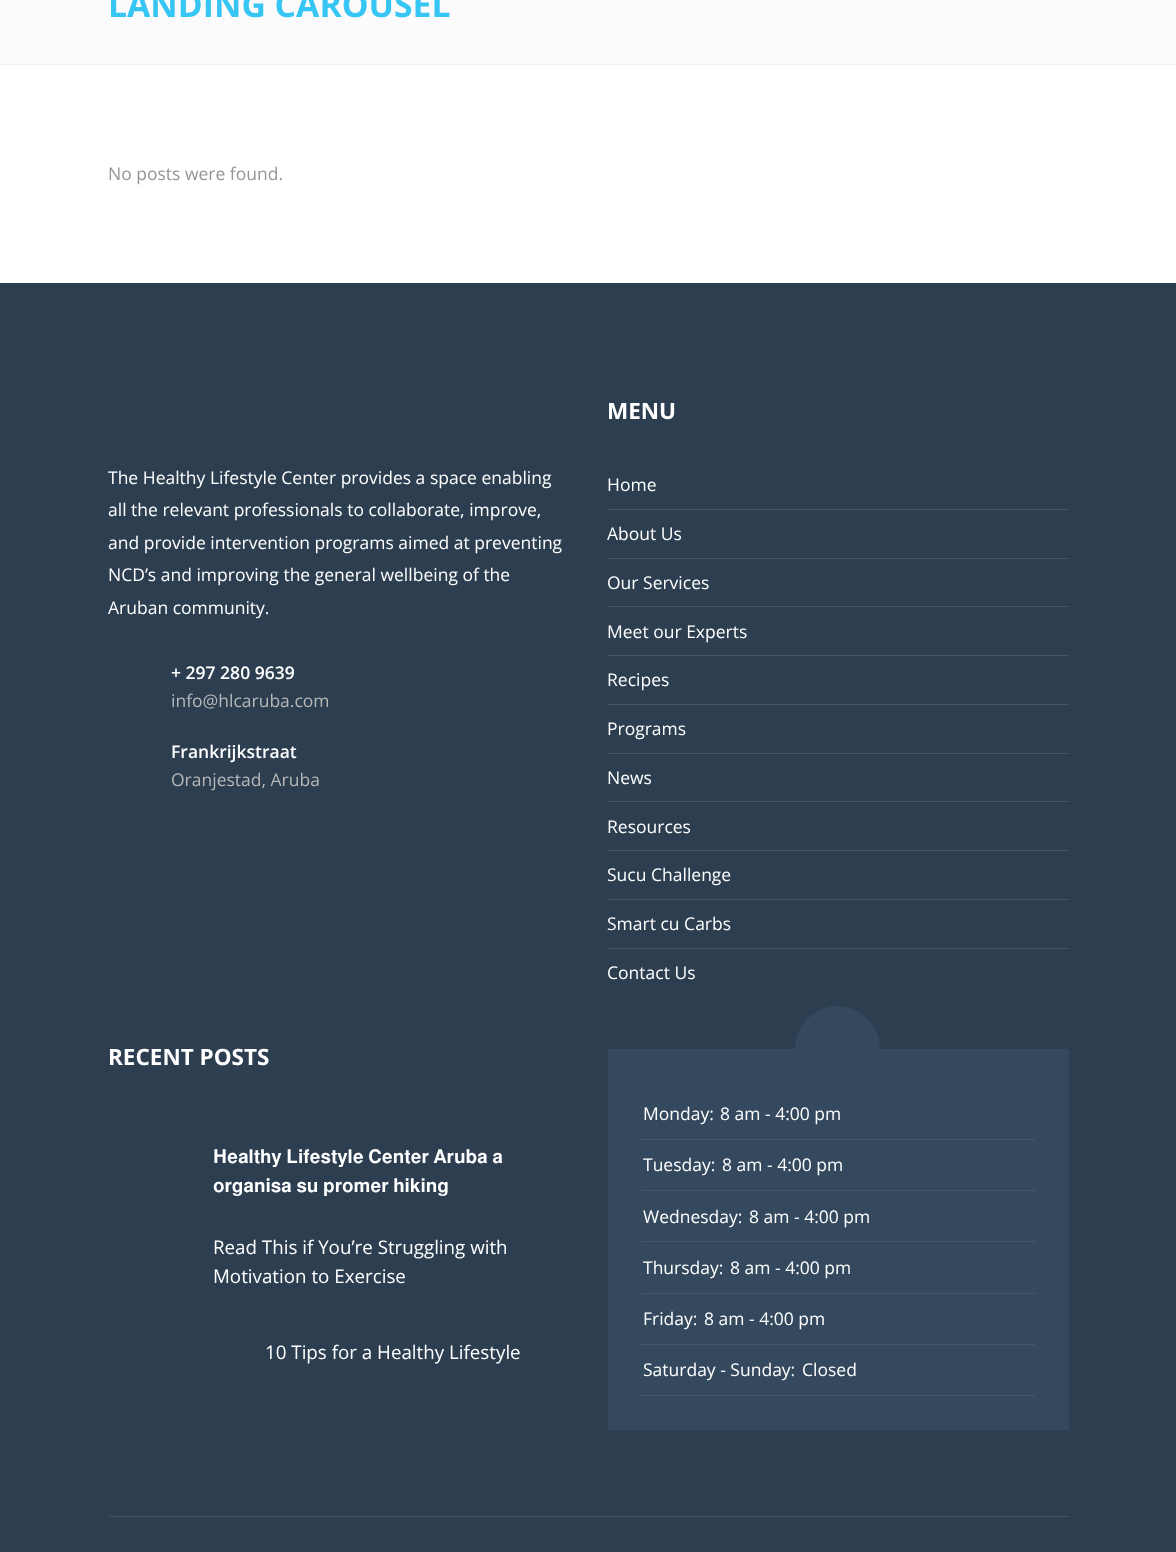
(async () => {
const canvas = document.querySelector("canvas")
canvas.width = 1176
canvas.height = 1552
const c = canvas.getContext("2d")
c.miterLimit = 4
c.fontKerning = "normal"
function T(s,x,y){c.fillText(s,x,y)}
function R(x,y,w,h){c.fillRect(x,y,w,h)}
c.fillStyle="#fff"
R(0,0,1176,1552)
c.fillStyle="#fbfbfc"
R(0,0,1176,64)
c.fillStyle="#f2f2f2"
R(0,64,1176,1)
c.font="bold 33.75px Open Sans"
c.fillStyle="#37c6f4"
T("LANDING CAROUSEL",108,17)
c.font="17.5px Open Sans"
c.fillStyle="#959595"
T("No posts were found.",108,180)
c.fillStyle="#2c3e50"
R(0,283,1176,1269)
c.fillStyle="#475666"
R(109,1516,960,1)
c.fillStyle="#fff"
T("The Healthy Lifestyle Center provides a space enabling",108,484)
T("all the relevant professionals to collaborate, improve,",108,516)
T("and provide intervention programs aimed at preventing",108,549)
T("NCD’s and improving the general wellbeing of the",108,581)
T("Aruban community.",108,614)
c.font="600 17.5px Open Sans"
T("+ 297 280 9639",171,679)
c.font="17.5px Open Sans"
c.fillStyle="#b7b7b7"
T("info@hlcaruba.com",171,707)
c.font="600 17.5px Open Sans"
c.fillStyle="#fff"
T("Frankrijkstraat",171,758)
c.font="17.5px Open Sans"
c.fillStyle="#b7b7b7"
T("Oranjestad, Aruba",171,786)
c.font="bold 22.5px Open Sans"
c.fillStyle="#fff"
T("MENU",607,419)
c.fillStyle="#475666"
R(608,509,461,1)
c.font="17.5px Open Sans"
c.fillStyle="#fff"
T("Home",607,491)
c.fillStyle="#475666"
R(608,655,461,1)
c.fillStyle="#fff"
T("About Us",607,540)
c.fillStyle="#475666"
R(608,558,461,1)
R(608,606,461,1)
c.fillStyle="#fff"
T("Our Services",607,589)
T("Meet our Experts",607,638)
c.fillStyle="#475666"
R(608,704,461,1)
c.fillStyle="#fff"
T("Recipes",607,686)
c.fillStyle="#475666"
R(608,753,461,1)
c.fillStyle="#fff"
T("Programs",607,735)
c.fillStyle="#475666"
R(608,801,461,1)
c.fillStyle="#fff"
T("News",607,784)
c.fillStyle="#475666"
R(608,948,461,1)
c.fillStyle="#fff"
T("Resources",607,833)
c.fillStyle="#475666"
R(608,850,461,1)
R(608,899,461,1)
c.fillStyle="#fff"
T("Sucu Challenge",607,881)
T("Smart cu Carbs",607,930)
T("Contact Us",607,979)
c.font="bold 22.5px Open Sans"
T("RECENT POSTS",108,1065)
c.font="18.75px FreeSans"
T("𝐇𝐞𝐚𝐥𝐭𝐡𝐲 𝐋𝐢𝐟𝐞𝐬𝐭𝐲𝐥𝐞 𝐂𝐞𝐧𝐭𝐞𝐫 𝐀𝐫𝐮𝐛𝐚 𝐚",213,1163)
T("𝐨𝐫𝐠𝐚𝐧𝐢𝐬𝐚 𝐬𝐮 𝐩𝐫𝐨𝐦𝐞𝐫 𝐡𝐢𝐤𝐢𝐧𝐠",213,1192)
c.font="18.75px Open Sans"
T("Read This if You’re Struggling with",213,1254)
T("Motivation to Exercise",213,1283)
T("10 Tips for a Healthy Lifestyle",265,1359)
c.fillStyle="#34495e"
R(608,1049,461,381)
c.beginPath()
c.arc(837.5,1048.5,42.5,0,7)
c.fill()
c.fillStyle="#44586b"
R(641,1139,394,1)
c.font="17.5px Open Sans"
c.fillStyle="#fff"
T("Monday:",643,1120)
T("8 am - 4:00 pm",720,1120)
c.fillStyle="#44586b"
R(641,1190,394,1)
c.fillStyle="#fff"
T("Tuesday:",643,1171)
T("8 am - 4:00 pm",722,1171)
c.fillStyle="#44586b"
R(641,1241,394,1)
c.fillStyle="#fff"
T("Wednesday:",643,1223)
T("8 am - 4:00 pm",749,1223)
c.fillStyle="#44586b"
R(641,1293,394,1)
c.fillStyle="#fff"
T("Thursday:",643,1274)
T("8 am - 4:00 pm",730,1274)
c.fillStyle="#44586b"
R(641,1344,394,1)
c.fillStyle="#fff"
T("Friday:",643,1325)
T("8 am - 4:00 pm",704,1325)
c.fillStyle="#44586b"
R(641,1395,394,1)
c.fillStyle="#fff"
T("Saturday - Sunday:",643,1376)
T("Closed",802,1376)
})()
